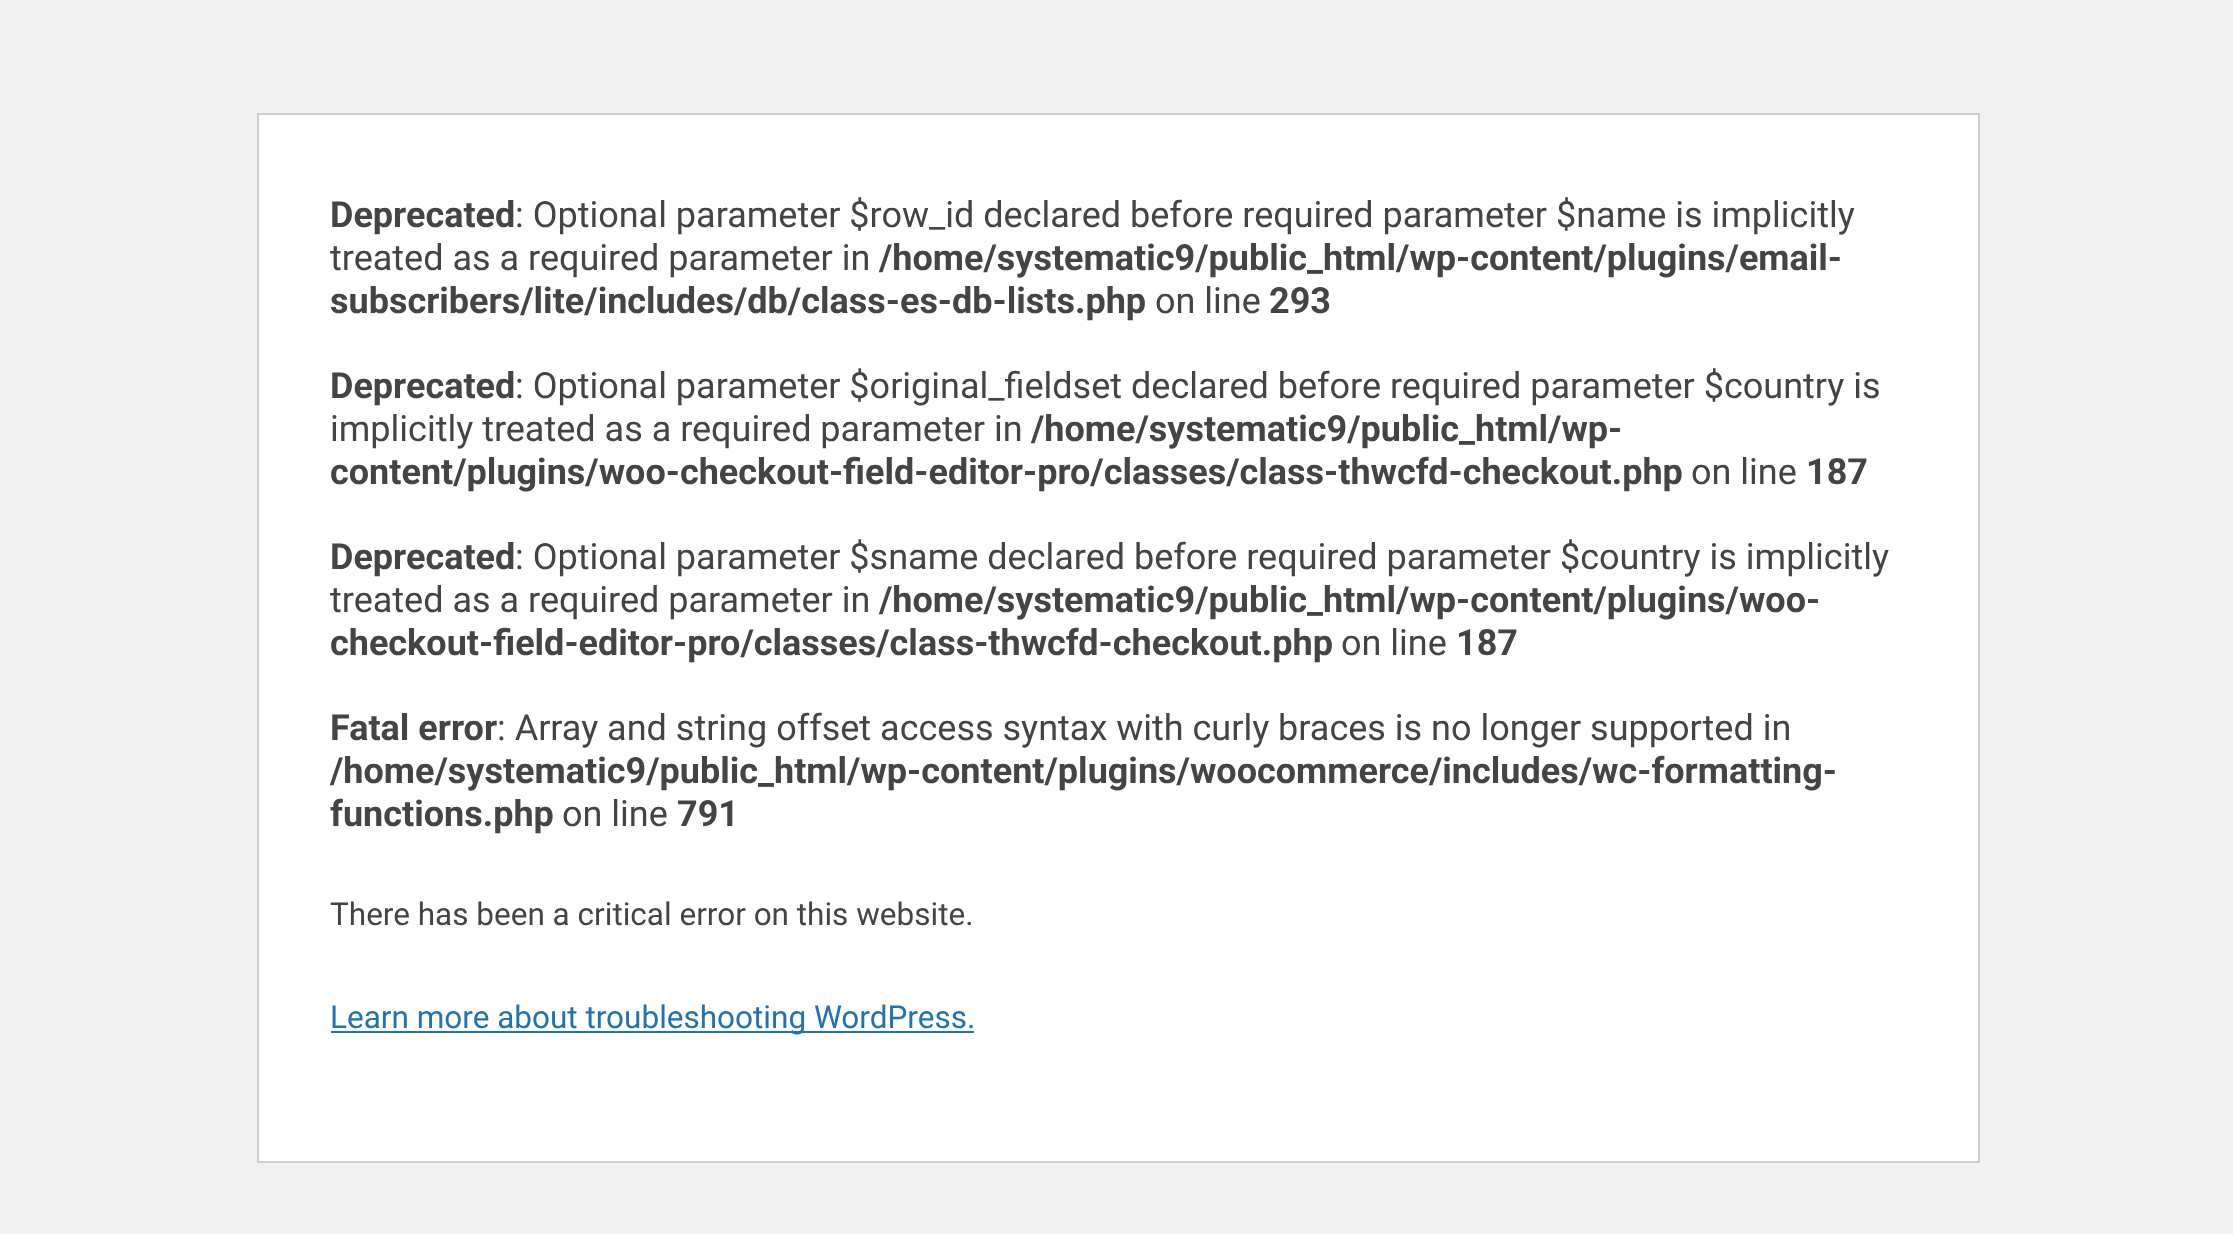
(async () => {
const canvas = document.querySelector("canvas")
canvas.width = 2233
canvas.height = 1234
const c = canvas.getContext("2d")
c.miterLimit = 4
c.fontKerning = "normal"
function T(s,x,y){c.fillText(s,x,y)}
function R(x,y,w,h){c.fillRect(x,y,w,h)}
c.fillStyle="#f1f1f1"
R(0,0,2233,1234)
c.fillStyle="#fff"
c.beginPath()
c.rect(258,114,1721,1048)
c.fill()
c.strokeStyle="#ccd0d4"
c.lineWidth=2
c.stroke()
c.font="bold 36px Roboto"
c.fillStyle="#444"
T("Deprecated",330,227)
c.font="36px Roboto"
T(": Optional parameter $row_id declared before required parameter $name is implicitly",515,227)
T("treated as a required parameter in",330,270)
c.font="bold 36px Roboto"
T("/home/systematic9/public_html/wp-content/plugins/email-",879,270)
T("subscribers/lite/includes/db/class-es-db-lists.php",330,313)
c.font="36px Roboto"
T("on line",1155,313)
c.font="bold 36px Roboto"
T("293",1269,313)
T("Deprecated",330,398)
c.font="36px Roboto"
T(": Optional parameter $original_fieldset declared before required parameter $country is",515,398)
T("implicitly treated as a required parameter in",330,441)
c.font="bold 36px Roboto"
T("/home/systematic9/public_html/wp-",1031,441)
T("content/plugins/woo-checkout-field-editor-pro/classes/class-thwcfd-checkout.php",330,484)
c.font="36px Roboto"
T("on line",1691,484)
c.font="bold 36px Roboto"
T("187",1806,484)
T("Deprecated",330,569)
c.font="36px Roboto"
T(": Optional parameter $sname declared before required parameter $country is implicitly",515,569)
T("treated as a required parameter in",330,612)
c.font="bold 36px Roboto"
T("/home/systematic9/public_html/wp-content/plugins/woo-",879,612)
T("checkout-field-editor-pro/classes/class-thwcfd-checkout.php",330,655)
c.font="36px Roboto"
T("on line",1341,655)
c.font="bold 36px Roboto"
T("187",1456,655)
T("Fatal error",330,740)
c.font="36px Roboto"
T(": Array and string offset access syntax with curly braces is no longer supported in",497,740)
c.font="bold 36px Roboto"
T("/home/systematic9/public_html/wp-content/plugins/woocommerce/includes/wc-formatting-",330,783)
T("functions.php",330,826)
c.font="36px Roboto"
T("on line",562,826)
c.font="bold 36px Roboto"
T("791",677,826)
c.font="31.5px Roboto"
T("There has been a critical error on this website.",330,925)
c.fillStyle="#2271b1"
R(331,1031,643,2)
T("Learn more about troubleshooting WordPress.",330,1028)
})()
